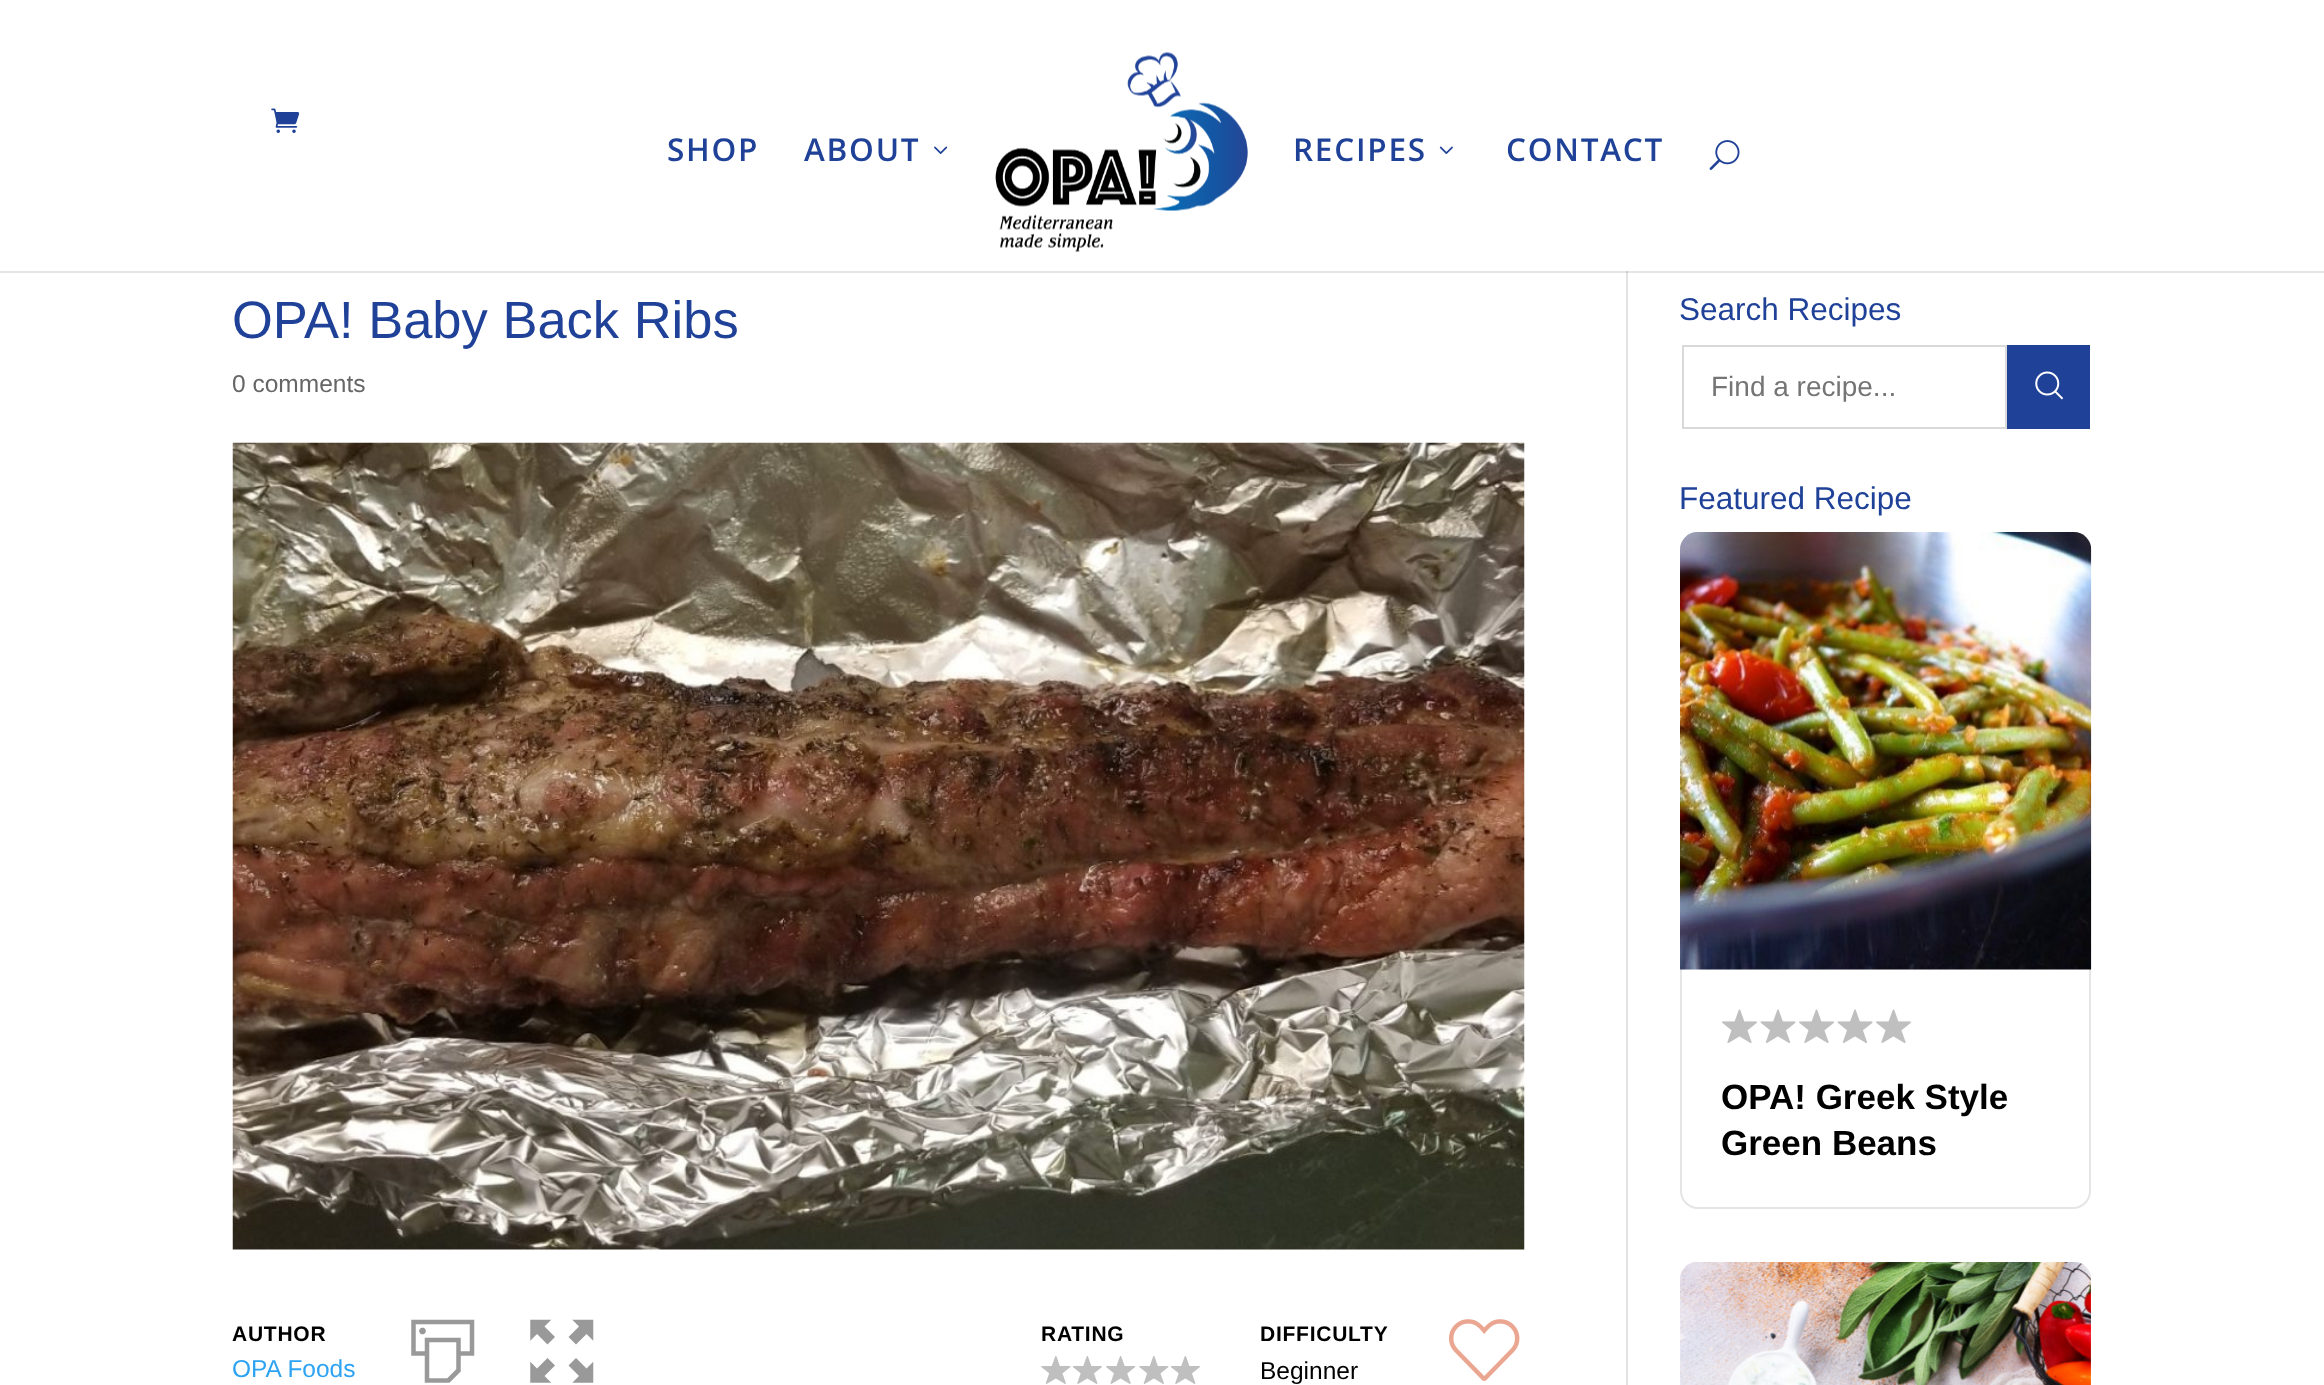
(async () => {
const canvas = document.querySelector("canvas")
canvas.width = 2324
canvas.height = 1385
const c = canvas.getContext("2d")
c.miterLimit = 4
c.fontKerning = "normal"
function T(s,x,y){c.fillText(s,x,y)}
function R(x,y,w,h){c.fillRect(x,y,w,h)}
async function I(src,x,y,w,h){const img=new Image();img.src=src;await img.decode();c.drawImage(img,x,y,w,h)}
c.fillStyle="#fff"
R(0,0,2324,1385)
c.fillStyle="#e6e6e6"
R(0,271,2324,2)
await I("1.png",271,108,29,25)
c.letterSpacing="1.75px"
c.font="600 31.5px Open Sans"
c.fillStyle="#1f4198"
T("SHOP",667,161)
T("ABOUT",804,161)
await I("2.png",934,146,14,8)
await I("3.png",995,52,253,200)
T("RECIPES",1293,161)
await I("4.png",1439,146,14,8)
T("CONTACT",1506,161)
await I("5.png",1709,140,31,30)
c.fillStyle="#e2e2e2"
R(1626,273,2,1112)
c.fillStyle="#cbcbcb"
R(1626,271,2,2)
c.letterSpacing="0px"
c.font="52.5px Liberation Sans"
c.fillStyle="#1f4198"
T("OPA! Baby Back Ribs",232,338)
c.font="24.5px Liberation Sans"
c.fillStyle="#666"
T("0 comments",232,392)
await I("6.png",232,442,1293,808)
c.letterSpacing="0.75px"
c.font="bold 21px Liberation Sans"
c.fillStyle="#000"
T("AUTHOR",232,1341)
c.letterSpacing="0px"
c.font="24.5px Liberation Sans"
c.fillStyle="#2ea3f2"
T("OPA Foods",232,1377)
await I("7.png",411,1319,64,64)
await I("8.png",530,1319,64,64)
c.letterSpacing="0.75px"
c.font="bold 21px Liberation Sans"
c.fillStyle="#000"
T("RATING",1041,1341)
await I("9.png",1041,1356,30,28)
await I("10.png",1073,1356,29,28)
await I("11.png",1106,1356,30,28)
await I("9.png",1139,1356,30,28)
await I("10.png",1171,1356,29,28)
T("DIFFICULTY",1260,1341)
c.letterSpacing="0px"
c.font="24.5px Liberation Sans"
T("Beginner",1260,1379)
await I("12.png",1449,1319,71,62)
c.font="31.5px Liberation Sans"
c.fillStyle="#1f4198"
T("Search Recipes",1679,320)
c.strokeStyle="#d9d9d9"
c.lineWidth=2
c.strokeRect(1683,346,323,82)
c.font="28px Liberation Sans"
c.fillStyle="#757575"
T("Find a recipe...",1711,396)
c.fillStyle="#1f4198"
R(2007,345,83,84)
await I("13.png",2035,371,29,29)
c.font="31.5px Liberation Sans"
T("Featured Recipe",1679,509)
c.beginPath()
c.roundRect(1681,533,409,675,17)
c.strokeStyle="#e5e5e5"
c.stroke()
await I("14.png",1680,532,412,438)
await I("15.png",1722,1009,35,34)
await I("16.png",1760,1009,36,34)
await I("15.png",1799,1009,35,34)
await I("16.png",1837,1009,36,34)
await I("15.png",1876,1009,35,34)
c.font="bold 35px Liberation Sans"
c.fillStyle="#000"
T("OPA! Greek Style",1721,1109)
T("Green Beans",1721,1155)
c.beginPath()
c.roundRect(1681,1263,409,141,17)
c.stroke()
await I("17.png",1680,1262,411,123)
})()
